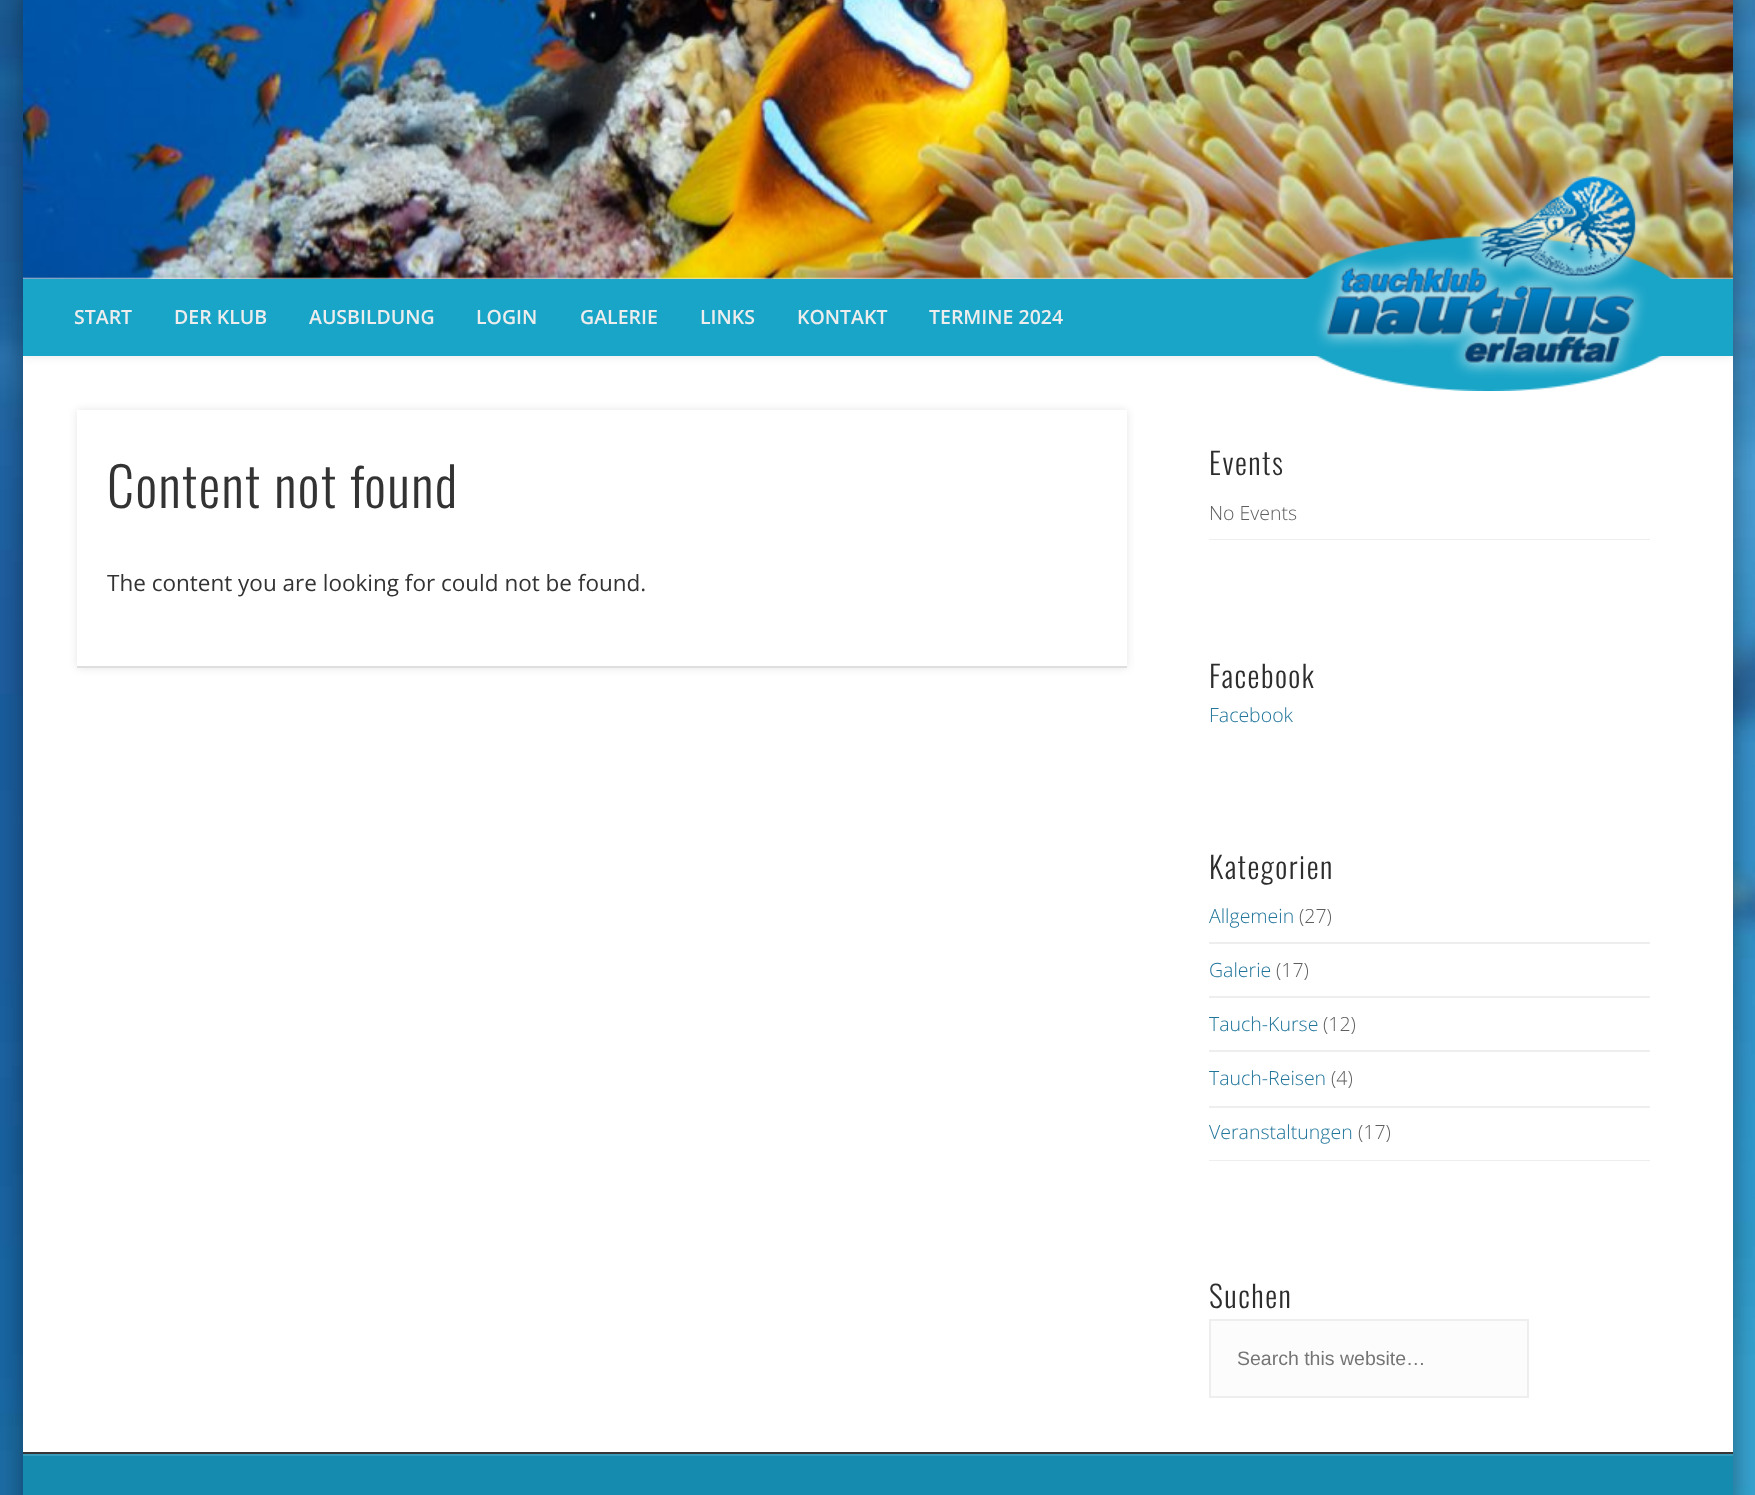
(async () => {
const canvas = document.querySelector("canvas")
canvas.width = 1755
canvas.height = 1495
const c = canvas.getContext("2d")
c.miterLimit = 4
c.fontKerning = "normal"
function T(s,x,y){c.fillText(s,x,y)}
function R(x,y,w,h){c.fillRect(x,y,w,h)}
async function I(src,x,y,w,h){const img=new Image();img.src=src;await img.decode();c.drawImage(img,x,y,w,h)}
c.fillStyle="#fff"
R(0,0,1755,1495)
await I("1.png",0,0,1755,1495)
c.fillStyle="#00000066"
c.filter="blur(13.5px)"
c.beginPath()
c.rect(23,-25,1710,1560)
c.fill()
c.filter="none"
c.fillStyle="#fff"
R(23,277,1710,1175)
await I("2.png",23,0,1710,279)
c.save()
c.beginPath()
c.rect(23,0,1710,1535)
c.clip()
c.fillStyle="#0000001a"
c.filter="blur(5px)"
c.beginPath()
c.rect(23,279,1710,77)
c.fill()
c.filter="none"
c.restore()
c.fillStyle="#19a5c8"
R(23,279,1710,77)
await I("3.png",1304,162,369,229)
c.font="600 19.5px Open Sans"
c.fillStyle="#ededed"
T("START",74,324)
T("DER KLUB",174,324)
T("AUSBILDUNG",309,324)
T("LOGIN",476,324)
T("GALERIE",580,324)
T("LINKS",700,324)
T("KONTAKT",797,324)
T("TERMINE 2024",929,324)
c.fillStyle="#0000001a"
c.filter="blur(4px)"
c.beginPath()
c.rect(77,410,1050,258)
c.fill()
c.filter="none"
c.fillStyle="#fff"
R(77,410,1050,256)
c.fillStyle="#dedede"
R(77,666,1050,2)
c.letterSpacing="1.5px"
c.font="300 54px Oswald"
c.fillStyle="#333"
T("Content not found",107,508)
c.letterSpacing="0px"
c.font="22.5px Open Sans"
T("The content you are looking for could not be found.",107,591)
c.letterSpacing="1.5px"
c.font="300 30px Oswald"
c.fillStyle="#2d2d2d"
T("Events",1209,475)
c.fillStyle="#eee"
R(1209,539,441,1)
c.letterSpacing="0px"
c.font="300 19.5px Open Sans"
c.fillStyle="#5e5e5e"
T("No Events",1209,520)
c.letterSpacing="1.5px"
c.font="300 30px Oswald"
c.fillStyle="#2d2d2d"
T("Facebook",1209,688)
c.letterSpacing="0px"
c.font="300 19.5px Open Sans"
c.fillStyle="#21759b"
T("Facebook",1209,722)
c.letterSpacing="1.5px"
c.font="300 30px Oswald"
c.fillStyle="#2d2d2d"
T("Kategorien",1209,879)
c.fillStyle="#eee"
R(1209,942,441,2)
c.letterSpacing="0px"
c.font="300 19.5px Open Sans"
c.fillStyle="#21759b"
T("Allgemein",1209,923)
c.fillStyle="#5e5e5e"
T("(27)",1299,923)
c.fillStyle="#eee"
R(1209,996,441,2)
c.fillStyle="#21759b"
T("Galerie",1209,977)
c.fillStyle="#5e5e5e"
T("(17)",1276,977)
c.fillStyle="#eee"
R(1209,1050,441,2)
c.fillStyle="#21759b"
T("Tauch-Kurse",1209,1031)
c.fillStyle="#5e5e5e"
T("(12)",1323,1031)
c.fillStyle="#eee"
R(1209,1106,441,2)
c.fillStyle="#21759b"
T("Tauch-Reisen",1209,1085)
c.fillStyle="#5e5e5e"
T("(4)",1331,1085)
c.fillStyle="#eee"
R(1209,1160,441,1)
c.fillStyle="#21759b"
T("Veranstaltungen",1209,1139)
c.fillStyle="#5e5e5e"
T("(17)",1358,1139)
c.letterSpacing="1.5px"
c.font="300 30px Oswald"
c.fillStyle="#2d2d2d"
T("Suchen",1209,1308)
c.fillStyle="#fcfcfc"
c.beginPath()
c.rect(1210,1320,318,77)
c.fill()
c.strokeStyle="#eee"
c.lineWidth=2
c.stroke()
c.letterSpacing="0px"
c.font="19.5px Liberation Sans"
c.fillStyle="#757575"
T("Search this website…",1237,1365)
c.fillStyle="#363636"
R(23,1452,1710,2)
c.fillStyle="#158baf"
R(23,1456,1710,39)
c.fillStyle="#379cbb"
R(23,1454,1710,2)
})()
